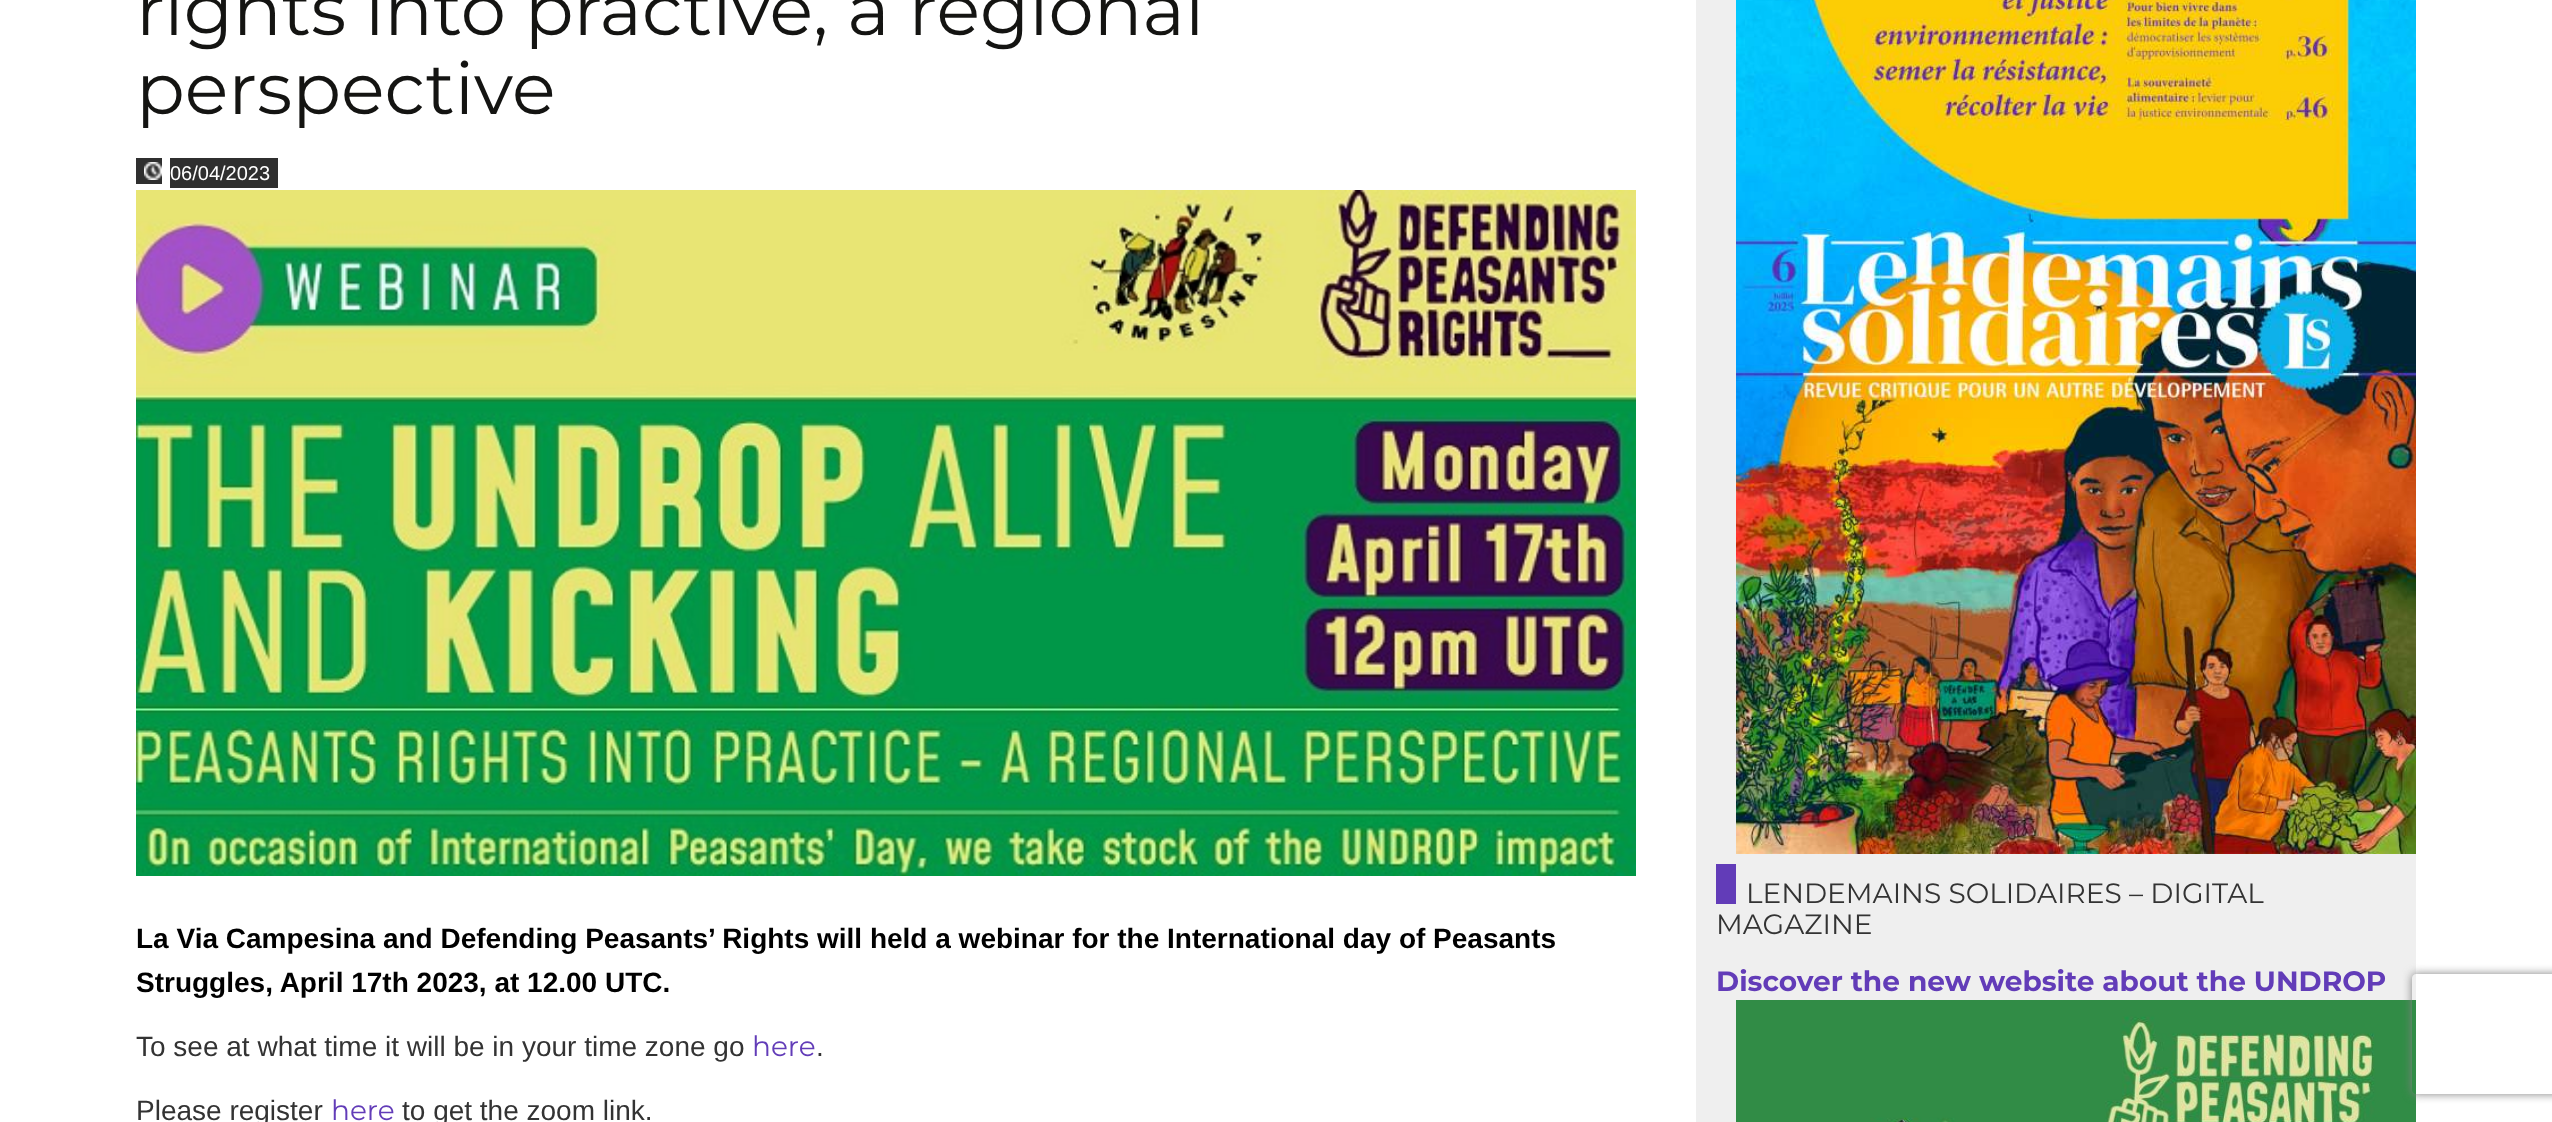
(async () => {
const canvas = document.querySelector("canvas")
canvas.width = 2552
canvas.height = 1122
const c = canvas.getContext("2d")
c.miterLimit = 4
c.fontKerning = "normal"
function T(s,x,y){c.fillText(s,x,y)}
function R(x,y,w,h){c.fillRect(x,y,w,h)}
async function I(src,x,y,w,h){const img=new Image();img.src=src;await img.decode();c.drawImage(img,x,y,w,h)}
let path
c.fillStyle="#fff"
R(0,0,2552,1122)
c.font="72px Montserrat"
c.fillStyle="#141412"
T("rights into practive, a regional",136,35)
T("perspective",136,114)
c.fillStyle="#2f2f2f"
R(136,158,26,26)
R(170,158,108,30)
await I("1.png",144,162,18,18)
c.font="20px Liberation Sans"
c.fillStyle="#fff"
T("06/04/2023",170,180)
await I("2.png",136,190,1500,686)
c.font="bold 28px Liberation Sans"
c.fillStyle="#000"
T("La Via Campesina and Defending Peasants’ Rights will held a webinar for the International day of Peasants",136,948)
T("Struggles, April 17th 2023, at 12.00 UTC.",136,992)
c.font="28px Liberation Sans"
c.fillStyle="#333"
T("To see at what time it will be in your time zone go",136,1056)
c.font="28px Montserrat"
c.fillStyle="#623cb8"
T("here",752,1056)
c.font="28px Liberation Sans"
c.fillStyle="#333"
T(".",816,1056)
T("Please register",136,1120)
c.font="28px Montserrat"
c.fillStyle="#623cb8"
T("here",331,1120)
c.font="28px Liberation Sans"
c.fillStyle="#333"
T("to get the zoom link.",402,1120)
c.fillStyle="#efefef"
R(1696,0,720,1122)
await I("3.png",1736,0,680,854)
c.fillStyle="#623cb8"
R(1716,864,20,40)
c.font="28px Montserrat"
c.fillStyle="#333"
T("LENDEMAINS SOLIDAIRES – DIGITAL",1746,903)
T("MAGAZINE",1716,934)
c.font="bold 28px Montserrat"
c.fillStyle="#623cb8"
T("Discover the new website about the UNDROP",1716,991)
await I("4.png",1736,1000,680,122)
c.save()
path = new Path2D("M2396 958h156v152h-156zm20 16h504c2 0 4 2 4 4v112c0 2-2 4-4 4h-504c-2 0-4-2-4-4v-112c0-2 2-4 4-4z")
c.clip(path,"evenodd")
c.fillStyle="#808080"
c.filter="blur(5px)"
c.beginPath()
c.roundRect(2412,974,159,120,4)
c.fill()
c.filter="none"
c.restore()
})()
